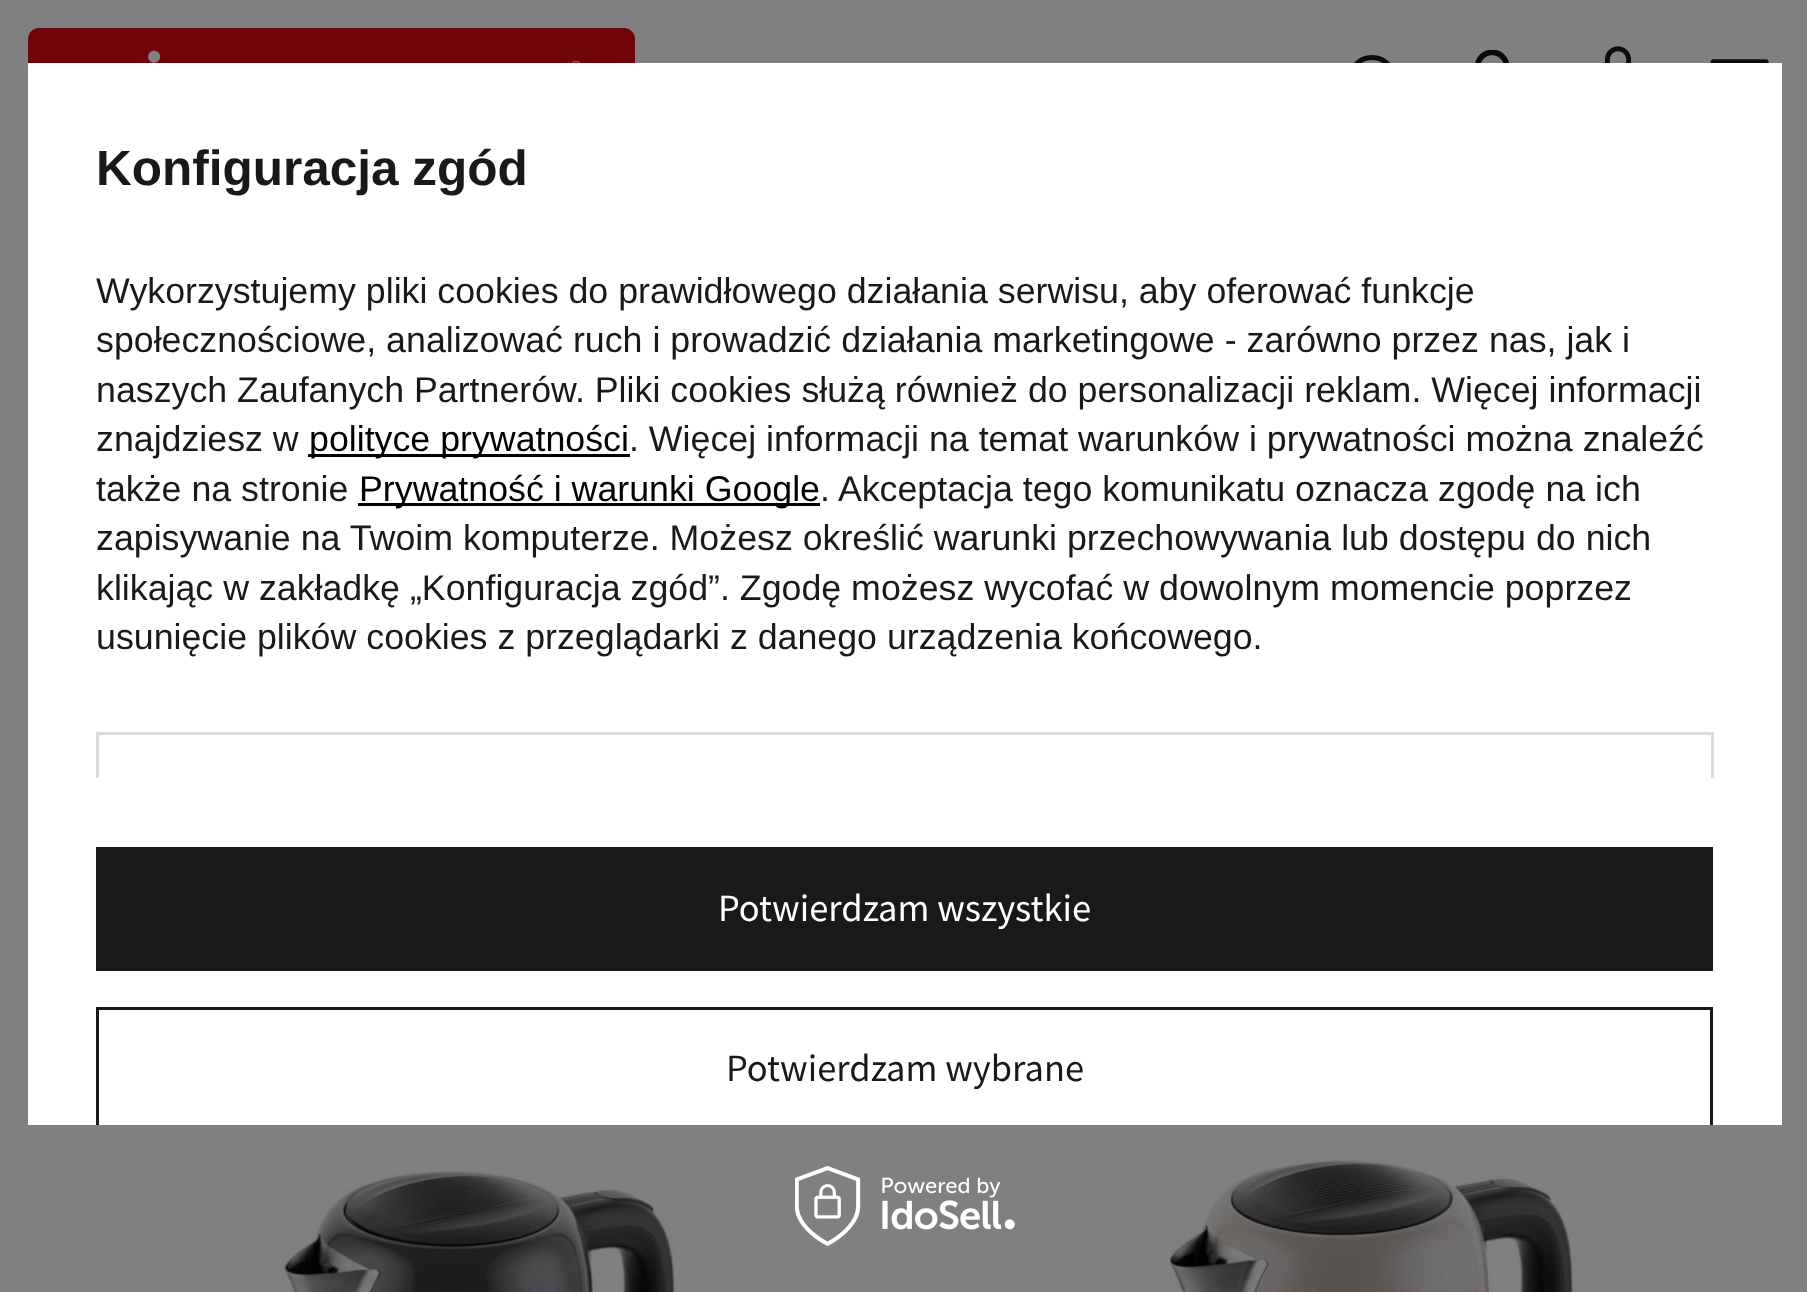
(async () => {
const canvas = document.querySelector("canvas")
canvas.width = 1807
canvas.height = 1292
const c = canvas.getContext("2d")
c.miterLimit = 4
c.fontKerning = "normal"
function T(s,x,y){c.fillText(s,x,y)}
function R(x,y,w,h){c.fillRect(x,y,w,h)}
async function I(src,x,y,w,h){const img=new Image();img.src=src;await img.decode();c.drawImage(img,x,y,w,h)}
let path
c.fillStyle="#808080"
R(0,0,1807,1292)
await I("1.png",28,28,607,35)
c.fillStyle="#0d0d0d"
path = new Path2D("M1372 55c-30 0-33 46-3 49c7 1 13-1 19-5l6 7c2 1 5 6 8 3c3-2-2-6-4-7l-7-7c13-16 2-40-19-40zm0 5c25 0 25 39 0 39c-25 0-25-39 0-39z")
c.fill(path)
await I("2.png",1475,50,34,13)
await I("3.png",1604,46,28,17)
await I("4.png",1710,59,59,4)
await I("5.png",284,1171,391,121)
await I("6.png",1169,1160,405,132)
c.fillStyle="#fff"
R(28,63,1754,1062)
c.font="bold 49.5px Liberation Sans"
c.fillStyle="#191919"
T("Konfiguracja zgód",96,185)
c.font="35.75px Liberation Sans"
T("Wykorzystujemy pliki cookies do prawidłowego działania serwisu, aby oferować funkcje",96,303)
T("społecznościowe, analizować ruch i prowadzić działania marketingowe - zarówno przez nas, jak i",96,352)
T("naszych Zaufanych Partnerów. Pliki cookies służą również do personalizacji reklam. Więcej informacji",96,402)
T("znajdziesz w",96,451)
c.fillStyle="#000"
R(308,454,322,3)
T("polityce prywatności",309,451)
c.fillStyle="#191919"
T(". Więcej informacji na temat warunków i prywatności można znaleźć",629,451)
T("także na stronie",96,501)
c.fillStyle="#000"
R(358,503,462,3)
T("Prywatność i warunki Google",359,501)
c.fillStyle="#191919"
T(". Akceptacja tego komunikatu oznacza zgodę na ich",820,501)
T("zapisywanie na Twoim komputerze. Możesz określić warunki przechowywania lub dostępu do nich",96,550)
T("klikając w zakładkę „Konfiguracja zgód”. Zgodę możesz wycofać w dowolnym momencie poprzez",96,600)
T("usunięcie plików cookies z przeglądarki z danego urządzenia końcowego.",96,649)
c.fillStyle="#dbdbdb"
R(96,732,1617,3)
R(1711,732,3,46)
R(96,732,3,46)
c.fillStyle="#191919"
R(96,847,1617,124)
c.font="38.5px Source Sans Pro"
c.fillStyle="#fff"
T("Potwierdzam wszystkie",718,921)
c.save()
c.beginPath()
c.rect(28,63,1754,1062)
c.clip()
c.strokeStyle="#191919"
c.lineWidth=3
c.strokeRect(97.5,1008.5,1614,120)
c.restore()
c.fillStyle="#191919"
T("Potwierdzam wybrane",726,1081)
await I("7.png",795,1166,220,80)
})()
